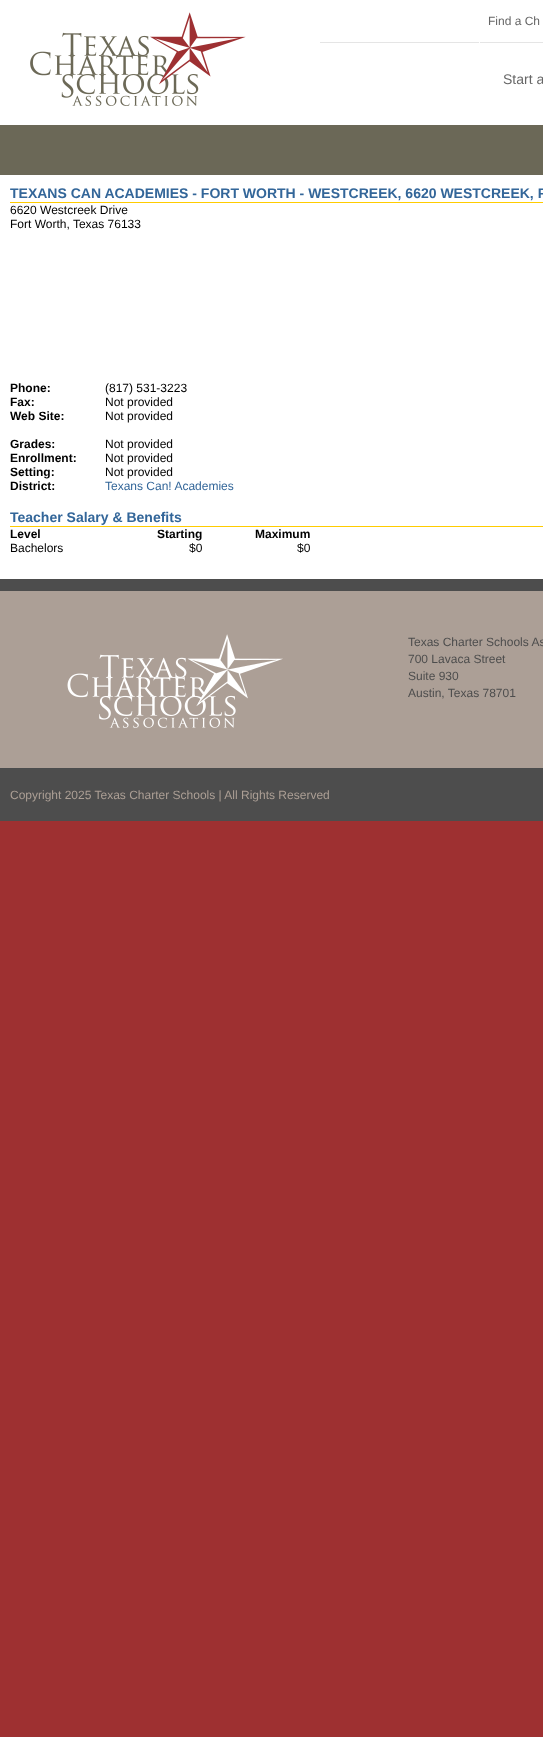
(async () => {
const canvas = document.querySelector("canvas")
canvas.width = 543
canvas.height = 1737
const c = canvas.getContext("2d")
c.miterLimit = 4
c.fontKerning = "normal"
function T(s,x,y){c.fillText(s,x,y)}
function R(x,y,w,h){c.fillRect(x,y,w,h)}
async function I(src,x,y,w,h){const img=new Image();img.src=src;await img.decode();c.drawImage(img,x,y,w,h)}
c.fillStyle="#9e3031"
R(0,0,543,1737)
c.fillStyle="#fff"
R(0,0,543,579)
await I("1.png",30,12,216,94)
c.fillStyle="#e5e5e5"
R(320,42,223,1)
c.fillStyle="#fff"
R(479,42,1,1)
c.font="12px Liberation Sans"
c.fillStyle="#666"
T("Find a Ch",488,25)
c.font="14px Liberation Sans"
T("Start a",503,84)
c.fillStyle="#6b6857"
R(0,125,543,50)
c.fillStyle="#fc0"
R(10,202,533,1)
c.font="bold 14px Liberation Sans"
c.fillStyle="#369"
T("TEXANS CAN ACADEMIES - FORT WORTH - WESTCREEK, 6620 WESTCREEK, F",10,198)
c.font="12px Liberation Sans"
c.fillStyle="#000"
T("6620 Westcreek Drive",10,214)
T("Fort Worth, Texas 76133",10,228)
c.font="bold 12px Liberation Sans"
T("Phone:",10,392)
c.font="12px Liberation Sans"
T("(817) 531-3223",105,392)
c.font="bold 12px Liberation Sans"
T("Fax:",10,406)
c.font="12px Liberation Sans"
T("Not provided",105,406)
c.font="bold 12px Liberation Sans"
T("Web Site:",10,420)
c.font="12px Liberation Sans"
T("Not provided",105,420)
c.font="bold 12px Liberation Sans"
T("Grades:",10,448)
c.font="12px Liberation Sans"
T("Not provided",105,448)
c.font="bold 12px Liberation Sans"
T("Enrollment:",10,462)
c.font="12px Liberation Sans"
T("Not provided",105,462)
c.font="bold 12px Liberation Sans"
T("Setting:",10,476)
c.font="12px Liberation Sans"
T("Not provided",105,476)
c.font="bold 12px Liberation Sans"
T("District:",10,490)
c.font="12px Liberation Sans"
c.fillStyle="#369"
T("Texans Can! Academies",105,490)
c.fillStyle="#fc0"
R(10,526,533,1)
c.font="bold 14px Liberation Sans"
c.fillStyle="#369"
T("Teacher Salary & Benefits",10,522)
c.font="bold 12px Liberation Sans"
c.fillStyle="#000"
T("Level",10,538)
T("Starting",157,538)
T("Maximum",255,538)
c.font="12px Liberation Sans"
T("Bachelors",10,552)
T("$0",189,552)
T("$0",297,552)
c.fillStyle="#ac9f96"
R(0,591,543,177)
c.fillStyle="#4d4d4d"
R(0,579,543,12)
await I("2.png",67,634,216,94)
T("Texas Charter Schools As",408,646)
T("700 Lavaca Street",408,663)
T("Suite 930",408,680)
T("Austin, Texas 78701",408,697)
R(0,769,543,52)
c.fillStyle="#4b4c4d"
R(0,768,543,1)
c.fillStyle="#ac9f95"
T("Copyright 2025 Texas Charter Schools | All Rights Reserved",10,799)
})()
